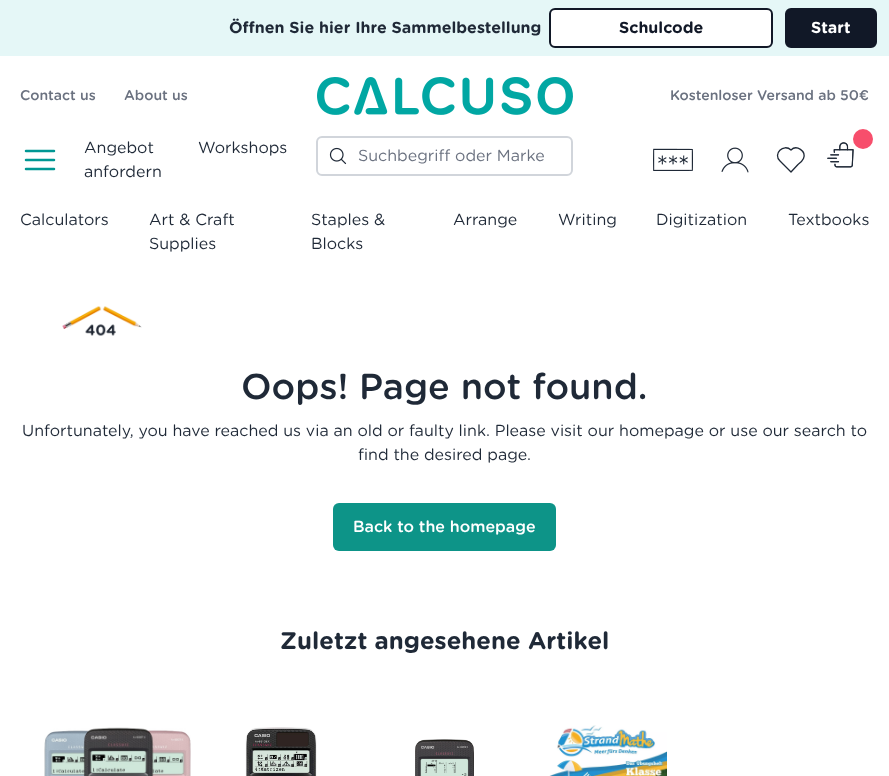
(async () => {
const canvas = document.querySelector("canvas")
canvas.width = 889
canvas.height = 776
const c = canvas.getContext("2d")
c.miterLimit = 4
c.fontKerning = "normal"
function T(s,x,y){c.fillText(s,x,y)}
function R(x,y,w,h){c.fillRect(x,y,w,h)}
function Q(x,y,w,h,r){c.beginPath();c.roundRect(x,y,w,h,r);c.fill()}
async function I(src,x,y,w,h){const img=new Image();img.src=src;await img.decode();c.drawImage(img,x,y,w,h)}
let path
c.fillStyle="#fff"
R(0,0,889,776)
c.fillStyle="#e5f7f7"
R(0,0,889,56)
c.font="bold 16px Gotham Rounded"
c.fillStyle="#1f2937"
T("Öffnen Sie hier Ihre Sammelbestellung",229,33)
c.fillStyle="#fff"
c.beginPath()
c.roundRect(550,9,222,38,5)
c.fill()
c.strokeStyle="#111827"
c.lineWidth=2
c.stroke()
c.fillStyle="#111827"
T("Schulcode",619,33)
c.beginPath()
c.roundRect(786,9,90,38,5)
c.fill()
c.stroke()
c.fillStyle="#fff"
T("Start",811,33)
c.font="500 14px Gotham Rounded"
c.fillStyle="#6b7280"
T("Contact us",20,100)
T("About us",124,100)
await I("1.png",317,77,256,38)
T("Kostenloser Versand ab 50€",670,100)
path = new Path2D("M26 151h28m-28 9h28m-28 9h28")
c.strokeStyle="#009793"
c.lineWidth=2.5
c.lineCap="round"
c.lineJoin="round"
c.stroke(path)
c.font="16px Gotham Rounded"
c.fillStyle="#1f2937"
T("Angebot",84,153)
T("anfordern",84,177)
T("Workshops",198,153)
c.beginPath()
c.roundRect(317,137,255,38,5)
c.strokeStyle="#d1d5db"
c.lineWidth=2
c.lineJoin="miter"
c.stroke()
await I("2.png",329,147,18,18)
c.fillStyle="#6b7280"
T("Suchbegriff oder Marke",358,161)
await I("3.png",653,148,40,23)
await I("4.png",721,147,28,26)
path = new Path2D("M780 161c-7.5-7 3.5-18 11-11c5.5-5.5 15.5 1 12.5 8.5c-1 2.5-3.5 4.5-5.5 6l-7 7.5z")
c.strokeStyle="#1f2937"
c.lineWidth=1.3
c.lineJoin="round"
c.stroke(path)
await I("5.png",827,142,27,26)
c.fillStyle="#f74e6c"
c.beginPath()
c.arc(863,139,10,0,7)
c.fill()
c.fillStyle="#1f2937"
T("Calculators",20,225)
T("Art & Craft",149,225)
T("Supplies",149,249)
T("Staples &",311,225)
T("Blocks",311,249)
T("Arrange",453,225)
T("Writing",558,225)
T("Digitization",656,225)
T("Textbooks",788,225)
await I("6.png",62,306,80,30)
c.font="500 36px Gotham Rounded"
T("Oops! Page not found.",241,399)
c.font="16px Gotham Rounded"
T("Unfortunately, you have reached us via an old or faulty link. Please visit our homepage or use our search to",22,436)
T("find the desired page.",358,460)
c.fillStyle="#0d9488"
Q(333,503,223,48,6)
c.font="500 16px Gotham Rounded"
c.fillStyle="#fff"
T("Back to the homepage",353,532)
c.font="bold 24px Gotham Rounded"
c.fillStyle="#1f2937"
T("Zuletzt angesehene Artikel",280,649)
await I("7.png",44,727,147,49)
await I("8.png",245,727,72,49)
await I("9.png",415,739,59,37)
await I("10.png",549,725,118,51)
})()
